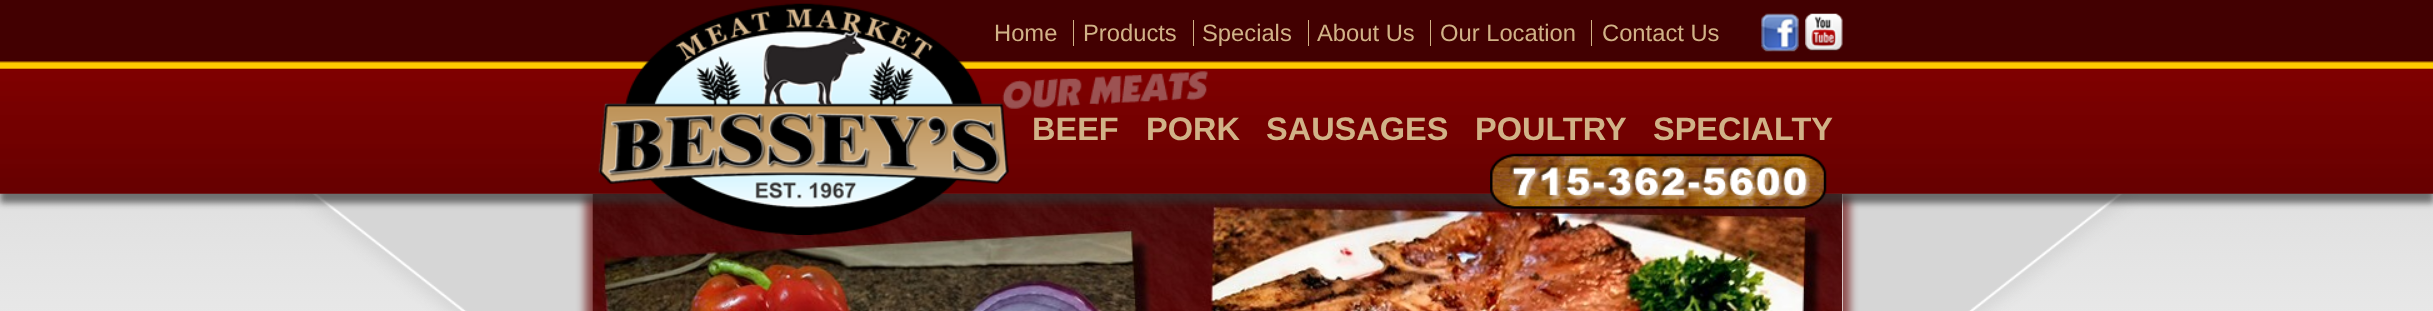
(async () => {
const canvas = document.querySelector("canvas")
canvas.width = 2433
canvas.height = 311
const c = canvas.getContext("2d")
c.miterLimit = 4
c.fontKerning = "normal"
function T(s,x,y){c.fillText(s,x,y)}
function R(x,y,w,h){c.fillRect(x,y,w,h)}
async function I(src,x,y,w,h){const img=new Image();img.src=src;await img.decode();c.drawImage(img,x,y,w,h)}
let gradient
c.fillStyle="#fff"
R(0,0,2433,311)
gradient = c.createLinearGradient(1217,194,1217,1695)
gradient.addColorStop(0,"#e0e0e0")
gradient.addColorStop(.28,"#fbfbfb")
c.fillStyle = gradient
R(0,194,2433,117)
await I("8.png",295,193,1845,118)
c.fillStyle="#660000a6"
c.filter="blur(4px)"
c.beginPath()
c.rect(585,194,1250,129)
c.fill()
c.filter="none"
c.filter="blur(4px)"
c.beginPath()
c.rect(600,194,1250,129)
c.fill()
c.filter="none"
c.fillStyle="#fff"
R(1842,194,1,117)
await I("7.png",592,193,1251,118)
c.fillStyle="#323232a6"
c.filter="blur(3px)"
c.beginPath()
c.rect(0,9,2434,194)
c.fill()
c.filter="none"
await I("1.png",0,0,2433,194)
await I("5.png",1002,71,206,38)
await I("2.png",598,3,411,232)
c.font="23.75px Liberation Sans"
c.fillStyle="#d1b287"
T("Home",994,41)
T("Products",1083,41)
R(1073,20,1,26)
T("Specials",1202,41)
R(1193,20,1,26)
T("About Us",1317,41)
R(1308,20,1,26)
T("Our Location",1440,41)
R(1430,20,1,26)
T("Contact Us",1602,41)
R(1591,20,1,26)
await I("3.png",1761,13,38,39)
await I("4.png",1805,13,38,38)
c.font="bold 32.5px Liberation Sans"
T("BEEF",1032,140)
T("PORK",1146,140)
T("SAUSAGES",1266,140)
T("POULTRY",1475,140)
T("SPECIALTY",1653,140)
await I("6.png",1490,153,337,56)
})()
